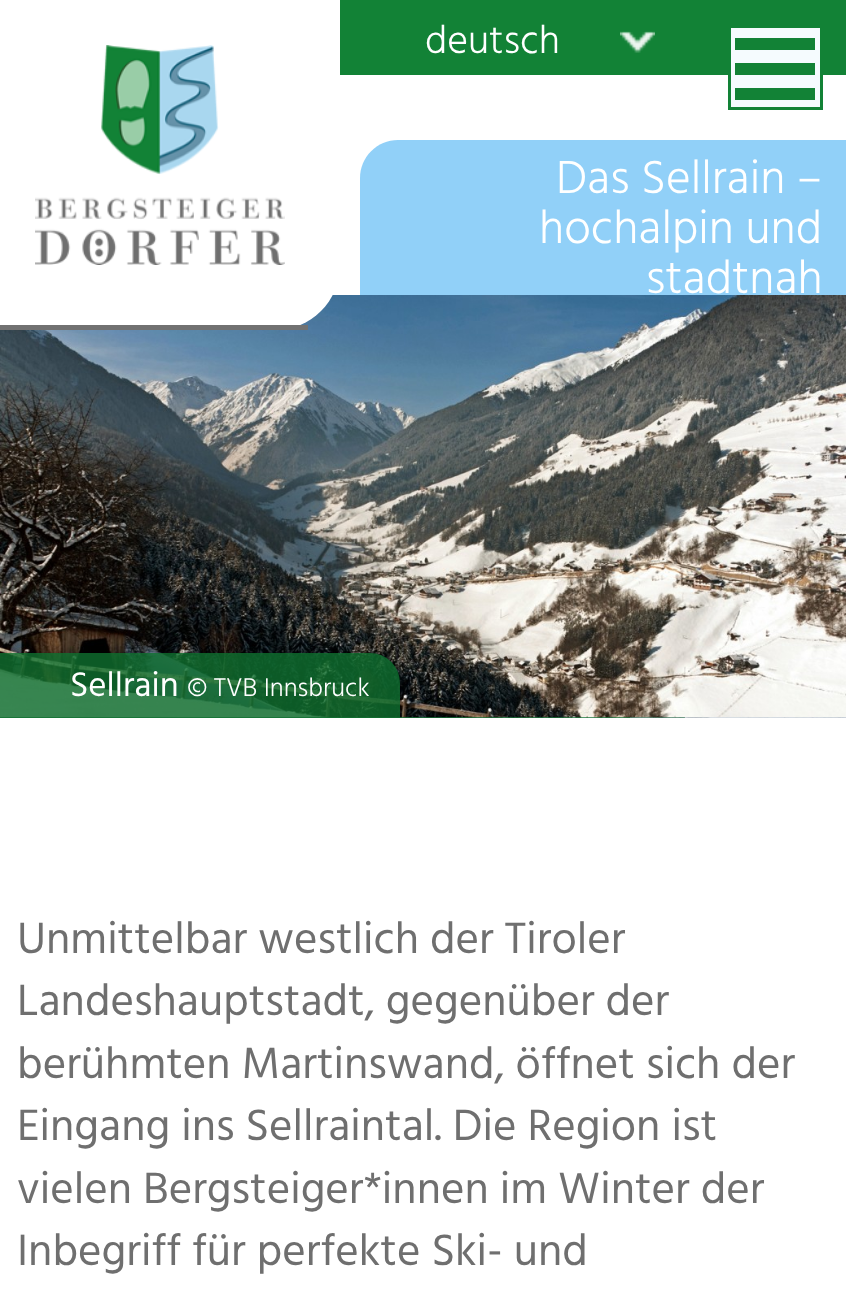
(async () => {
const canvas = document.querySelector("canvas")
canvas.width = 846
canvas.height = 1294
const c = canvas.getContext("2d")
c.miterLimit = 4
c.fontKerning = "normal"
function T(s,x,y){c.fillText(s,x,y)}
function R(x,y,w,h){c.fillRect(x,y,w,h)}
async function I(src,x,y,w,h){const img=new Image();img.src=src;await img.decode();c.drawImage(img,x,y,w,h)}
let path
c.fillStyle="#fff"
R(0,0,846,1294)
c.fillStyle="#128236"
R(340,0,506,75)
await I("4.png",0,717,846,1)
c.fillStyle="#0f712fcc"
R(0,717,685,1)
await I("5.png",0,717,846,1)
R(0,717,468,1)
await I("6.png",0,717,846,1)
R(0,717,630,1)
await I("3.png",0,295,846,423)
c.fillStyle="#fff"
path = new Path2D("M-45 0h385v265c0 36-29 65-65 65h-255c-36 0-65-29-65-65z")
c.fill(path)
c.fillStyle="#717171"
R(0,325,308,5)
await I("1.png",35,45,250,220)
await I("2.png",620,31,35,22)
c.font="300 40px Hind Guntur"
c.fillStyle="#fff"
T("deutsch",425,53)
c.fillStyle="#f5fbfe"
c.beginPath()
c.rect(729.5,26.5,92,82)
c.fill()
c.strokeStyle="#128236"
c.lineWidth=3
c.stroke()
c.fillStyle="#128236"
R(735,38,80,12)
R(735,63,80,12)
R(735,88,80,12)
c.fillStyle="#91d0f8"
path = new Path2D("M398 140h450v155h-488v-117c0-21 17-38 38-38z")
c.fill(path)
c.font="300 47.5px Hind Guntur"
c.fillStyle="#fff"
T("Das Sellrain –",556,193)
T("hochalpin und",539,243)
T("stadtnah",646,293)
c.fillStyle="#0f712fcc"
c.beginPath()
c.roundRect(0,653,400,65,[0,30,0,0])
c.fill()
c.font="35px Hind Guntur"
c.fillStyle="#fff"
T("Sellrain",70,696)
c.font="300 26.25px Hind Guntur"
T("© TVB Innsbruck",187,696)
c.font="45px Hind Guntur"
c.fillStyle="#6f6f6f"
T("Unmittelbar westlich der Tiroler",17,953)
T("Landeshauptstadt, gegenüber der",17,1015)
T("berühmten Martinswand, öffnet sich der",17,1078)
T("Eingang ins Sellraintal. Die Region ist",17,1140)
T("vielen Bergsteiger*innen im Winter der",17,1203)
T("Inbegriff für perfekte Ski- und",17,1265)
})()
